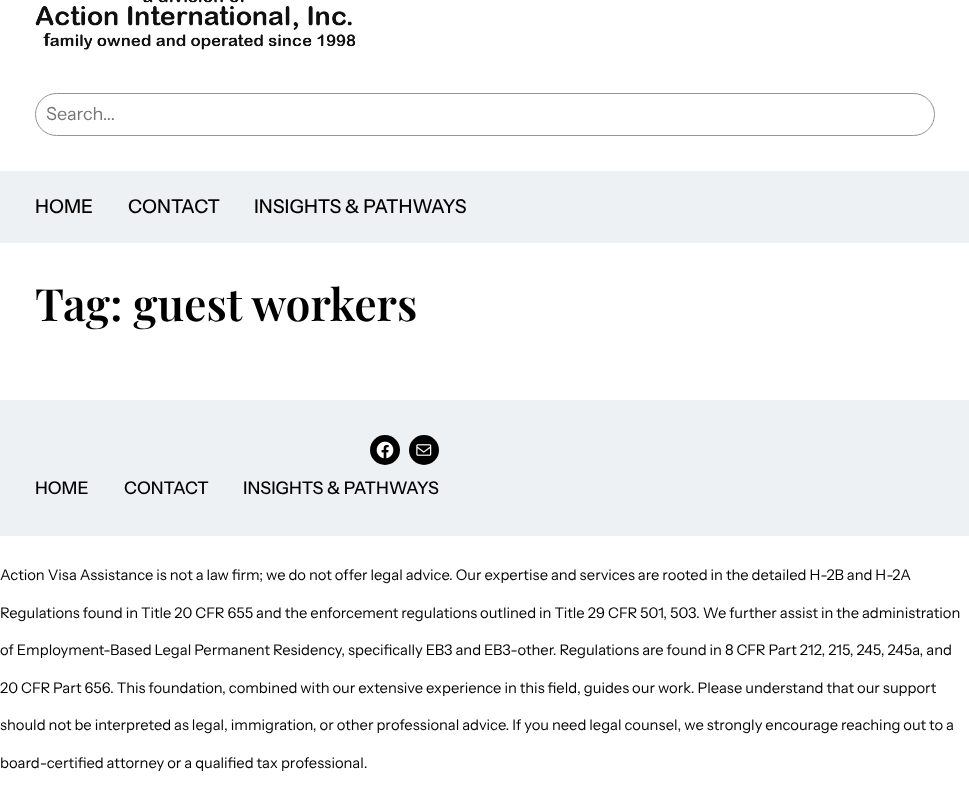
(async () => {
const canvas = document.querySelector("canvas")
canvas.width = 969
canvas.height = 805
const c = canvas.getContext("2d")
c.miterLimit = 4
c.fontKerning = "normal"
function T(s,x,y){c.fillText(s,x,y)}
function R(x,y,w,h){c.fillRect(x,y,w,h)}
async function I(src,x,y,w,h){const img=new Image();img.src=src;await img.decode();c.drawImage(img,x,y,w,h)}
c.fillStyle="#fff"
R(0,0,969,805)
await I("1.png",35,0,321,50)
c.beginPath()
c.roundRect(35.5,93.5,899,42,21)
c.strokeStyle="#949494"
c.stroke()
c.font="18px Instrument Sans"
c.fillStyle="#757575"
T("Search...",46,120)
c.fillStyle="#edf1f4"
R(0,171,969,72)
c.font="500 19px Instrument Sans"
c.fillStyle="#000"
T("HOME",35,213)
T("CONTACT",128,213)
T("INSIGHTS & PATHWAYS",254,213)
c.font="600 44.5px Playfair Display"
T("Tag: guest workers",35,321)
c.fillStyle="#edf1f4"
R(0,400,969,136)
c.fillStyle="#000"
c.beginPath()
c.arc(385,450,15,0,7)
c.fill()
await I("2.png",376,441,18,18)
c.beginPath()
c.arc(424,450,15,0,7)
c.fill()
await I("3.png",416,444,16,12)
c.font="500 17.5px Instrument Sans"
T("HOME",35,494)
T("CONTACT",124,494)
T("INSIGHTS & PATHWAYS",243,494)
c.font="14.75px Instrument Sans"
T("Action Visa Assistance is not a law firm; we do not offer legal advice. Our expertise and services are rooted in the detailed H-2B and H-2A",0,580)
T("Regulations found in Title 20 CFR 655 and the enforcement regulations outlined in Title 29 CFR 501, 503. We further assist in the administration",0,618)
T("of Employment-Based Legal Permanent Residency, specifically EB3 and EB3-other. Regulations are found in 8 CFR Part 212, 215, 245, 245a, and",0,655)
T("20 CFR Part 656. This foundation, combined with our extensive experience in this field, guides our work. Please understand that our support",0,693)
T("should not be interpreted as legal, immigration, or other professional advice. If you need legal counsel, we strongly encourage reaching out to a",0,730)
T("board-certified attorney or a qualified tax professional.",0,768)
})()
